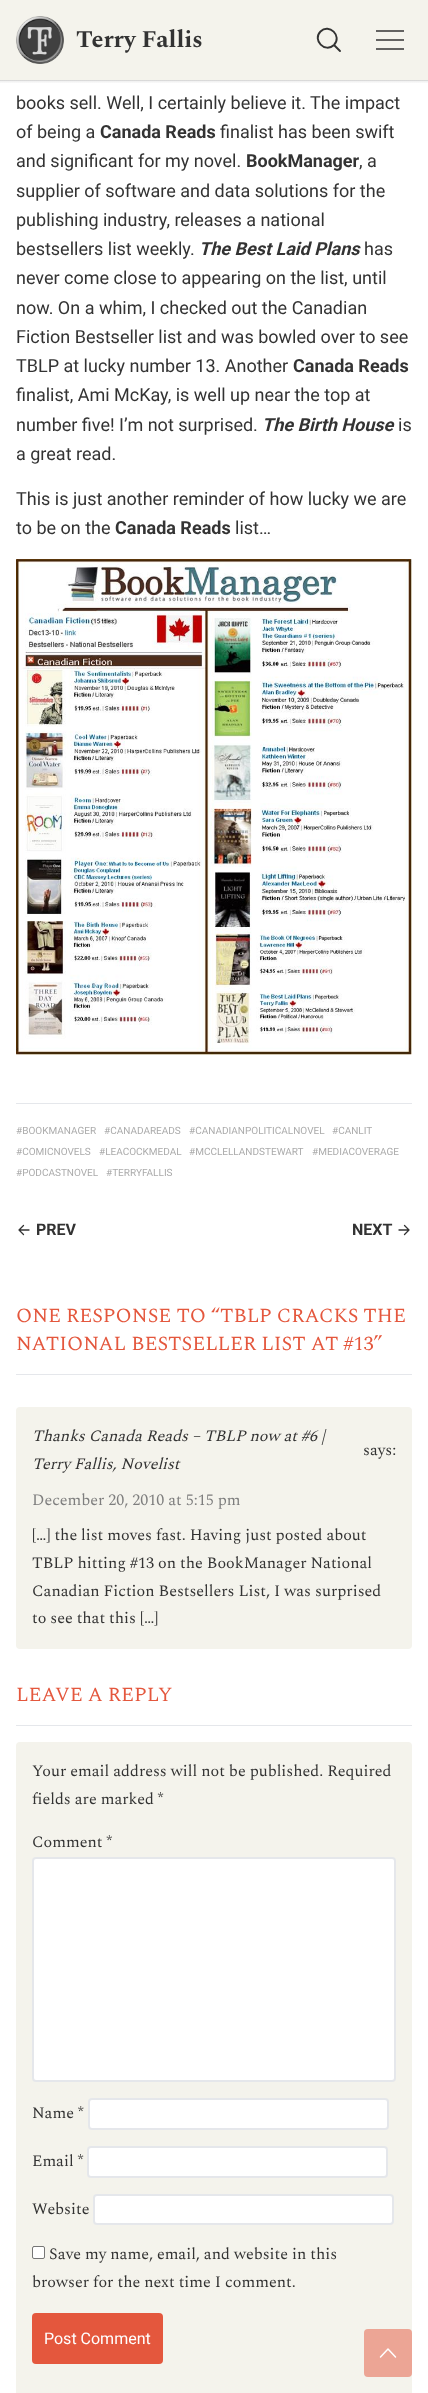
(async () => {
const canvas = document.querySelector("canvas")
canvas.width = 428
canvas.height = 2393
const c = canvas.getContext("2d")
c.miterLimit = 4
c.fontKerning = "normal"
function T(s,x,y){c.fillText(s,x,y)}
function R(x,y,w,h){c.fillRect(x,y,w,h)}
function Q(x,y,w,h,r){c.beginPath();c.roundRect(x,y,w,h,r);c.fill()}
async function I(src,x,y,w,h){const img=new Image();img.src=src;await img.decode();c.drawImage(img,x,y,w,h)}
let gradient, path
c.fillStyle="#fff"
R(0,0,428,2393)
c.fillStyle="#f4f3ec"
R(0,0,428,80)
await I("1.png",16,16,48,48)
c.font="bold 24px Spectral"
c.fillStyle="#333"
T("Terry Fallis",76,47)
path = new Path2D("M340 51l-6-6m0 0c8.5-9-5-22-13.5-13.5c-8.5 8.5 4.5 22 13.5 13.5z")
c.strokeStyle="#333"
c.lineWidth=1.9
c.lineCap="round"
c.lineJoin="round"
c.stroke(path)
path = new Path2D("M376 31h28m-28 9h28m-28 9h28")
c.lineWidth=1.7
c.lineCap="butt"
c.lineJoin="miter"
c.stroke(path)
c.fillStyle="#3333331a"
R(0,80,428,1)
gradient = c.createLinearGradient(214,80,214,84)
gradient.addColorStop(0,"#3333331a")
gradient.addColorStop(1,"#33333300")
c.fillStyle = gradient
R(0,80,428,3)
c.fillStyle="#e5e7eb"
R(16,1103,396,1)
c.font="18px Roboto"
c.fillStyle="#333"
T("books sell. Well, I certainly believe it. The impact",16,109)
T("of being a",16,138)
c.font="bold 18px Roboto"
T("Canada Reads",100,138)
c.font="18px Roboto"
T("finalist has been swift",220,138)
T("and significant for my novel.",16,167)
c.font="bold 18px Roboto"
T("BookManager",246,167)
c.font="18px Roboto"
T(", a",359,167)
T("supplier of software and data solutions for the",16,197)
T("publishing industry, releases a national",16,226)
T("bestsellers list weekly.",16,255)
c.font="italic bold 18px Roboto"
T("The Best Laid Plans",199,255)
c.font="18px Roboto"
T("has",364,255)
T("never come close to appearing on the list, until",16,284)
T("now. On a whim, I checked out the Canadian",16,314)
T("Fiction Bestseller list and was bowled over to see",16,343)
T("TBLP at lucky number 13. Another",16,372)
c.font="bold 18px Roboto"
T("Canada Reads",293,372)
c.font="18px Roboto"
T("finalist, Ami McKay, is well up near the top at",16,401)
T("number five! I’m not surprised.",16,431)
c.font="italic bold 18px Roboto"
T("The Birth House",262,431)
c.font="18px Roboto"
T("is",398,431)
T("a great read.",16,460)
T("This is just another reminder of how lucky we are",16,505)
T("to be on the",16,534)
c.font="bold 18px Roboto"
T("Canada Reads",115,534)
c.font="18px Roboto"
T("list…",235,534)
await I("2.png",16,559,396,496)
c.font="10px Roboto"
c.fillStyle="#ababab"
T("#BOOKMANAGER",16,1134)
T("#CANADAREADS",104,1134)
T("#CANADIANPOLITICALNOVEL",189,1134)
T("#CANLIT",332,1134)
T("#COMICNOVELS",16,1155)
T("#LEACOCKMEDAL",99,1155)
T("#MCCLELLANDSTEWART",189,1155)
T("#MEDIACOVERAGE",312,1155)
T("#PODCASTNOVEL",16,1176)
T("#TERRYFALLIS",106,1176)
path = new Path2D("M29 1230h-10m0 0l4.5 4.5m-4.5-4.5l4.5-4.5")
c.lineWidth=1.3
c.lineCap="round"
c.lineJoin="round"
c.stroke(path)
c.font="bold 16px Roboto"
c.fillStyle="#333"
T("PREV",36,1235)
T("NEXT",352,1235)
path = new Path2D("M399 1230h10m0 0l-4.5-4.5m4.5 4.5l-4.5 4.5")
c.stroke(path)
c.fillStyle="#e5e7eb"
R(16,1374,396,1)
c.font="20px Spectral"
c.fillStyle="#e4573d"
T("ONE RESPONSE TO “TBLP CRACKS THE",16,1322)
T("NATIONAL BESTSELLER LIST AT #13”",16,1350)
c.fillStyle="#f4f3ec"
Q(16,1407,396,242,4)
c.font="italic 16px Spectral"
c.fillStyle="#333"
T("Thanks Canada Reads – TBLP now at #6 |",32,1441)
T("Terry Fallis, Novelist",32,1469)
c.font="16px Spectral"
T("says:",363,1455)
c.fillStyle="#7e7e7e"
T("December 20, 2010 at 5:15 pm",32,1505)
c.fillStyle="#333"
T("[…] the list moves fast. Having just posted about",32,1540)
T("TBLP hitting #13 on the BookManager National",32,1568)
T("Canadian Fiction Bestsellers List, I was surprised",32,1596)
T("to see that this […]",32,1623)
c.fillStyle="#e5e7eb"
R(16,1725,396,1)
c.font="20px Spectral"
c.fillStyle="#e4573d"
T("LEAVE A REPLY",16,1701)
c.fillStyle="#f4f3ec"
Q(16,1742,396,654,4)
c.font="16px Spectral"
c.fillStyle="#333"
T("Your email address will not be published. Required",32,1776)
T("fields are marked *",32,1804)
T("Comment *",32,1847)
c.fillStyle="#fff"
c.beginPath()
c.roundRect(33,1858,362,223,3)
c.fill()
c.strokeStyle="#e5e7eb"
c.lineWidth=2
c.lineJoin="miter"
c.stroke()
c.fillStyle="#333"
T("Name *",32,2118)
c.fillStyle="#fff"
c.beginPath()
c.roundRect(89,2099,299,30,3)
c.fill()
c.stroke()
c.fillStyle="#333"
T("Email *",32,2166)
c.fillStyle="#fff"
c.beginPath()
c.roundRect(88,2147,299,30,3)
c.fill()
c.stroke()
c.fillStyle="#333"
T("Website",32,2214)
c.fillStyle="#fff"
c.beginPath()
c.roundRect(94,2195,299,29,3)
c.fill()
c.stroke()
c.beginPath()
c.roundRect(32.5,2246.5,12,12,1.5)
c.fill()
c.strokeStyle="#767676"
c.lineWidth=1
c.stroke()
c.fillStyle="#333"
T("Save my name, email, and website in this",49,2259)
T("browser for the next time I comment.",32,2287)
c.fillStyle="#e4573d"
Q(32,2313,131,51,4)
c.font="16px Roboto"
c.fillStyle="#fff"
T("Post Comment",44,2344)
c.fillStyle="#eca595"
Q(364,2329,48,48,4)
path = new Path2D("M380.5 2357l7.5-8l7.5 8")
c.strokeStyle="#fff"
c.lineWidth=1.5
c.lineJoin="round"
c.stroke(path)
})()
